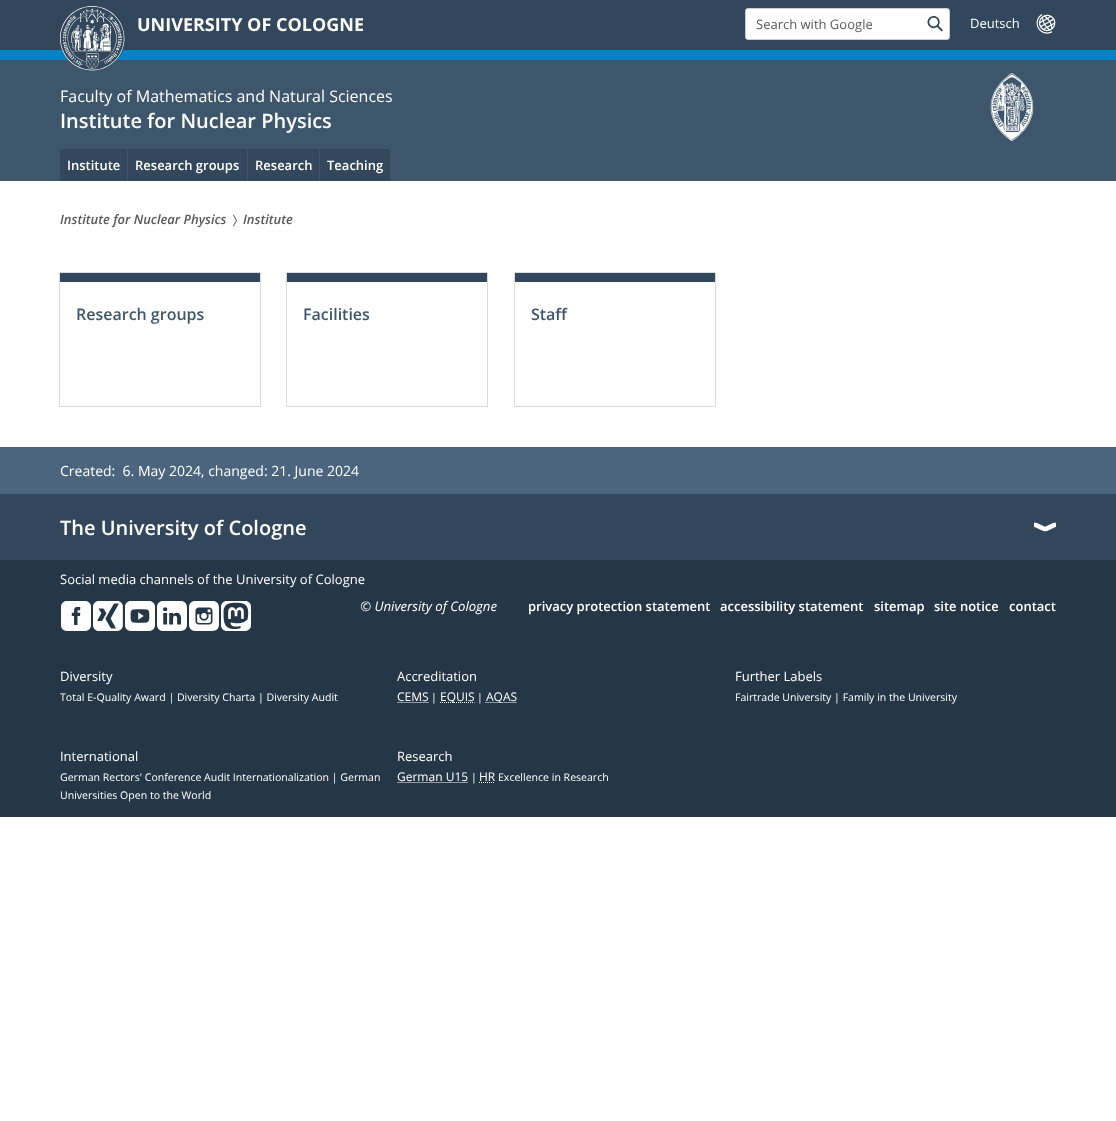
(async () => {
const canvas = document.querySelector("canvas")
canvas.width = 1116
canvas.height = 1121
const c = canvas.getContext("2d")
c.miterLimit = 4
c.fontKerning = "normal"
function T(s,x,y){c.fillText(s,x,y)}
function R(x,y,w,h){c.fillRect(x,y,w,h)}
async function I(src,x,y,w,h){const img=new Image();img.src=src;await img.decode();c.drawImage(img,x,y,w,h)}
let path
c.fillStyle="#fff"
R(0,0,1116,1121)
c.fillStyle="#3e566c"
R(0,60,1116,121)
c.fillStyle="#32475b"
R(0,0,1116,50)
c.fillStyle="#0082c6"
R(0,50,1116,10)
c.fillStyle="#32475b"
c.beginPath()
c.arc(92.5,38.5,32.5,0,7)
c.fill()
await I("1.png",60,6,65,65)
c.font="bold 18px Open Sans"
c.fillStyle="#fff"
T("UNIVERSITY OF COLOGNE",137,31)
c.beginPath()
c.roundRect(745.5,8.5,204,31,2.5)
c.fill()
c.strokeStyle="#ccc"
c.stroke()
c.font="13px Open Sans"
c.fillStyle="#595959"
T("Search with Google",756,29)
await I("2.png",927,16,16,16)
c.fillStyle="#fff"
T("Deutsch",970,28)
await I("3.png",1036,14,20,20)
c.font="16px Open Sans"
T("Faculty of Mathematics and Natural Sciences",60,102)
c.font="600 20px Open Sans"
T("Institute for Nuclear Physics",60,128)
await I("4.png",990,73,44,68)
c.fillStyle="#32475b"
R(60,149,67,32)
c.font="600 13px Open Sans"
c.fillStyle="#fff"
T("Institute",67,170)
c.fillStyle="#32475b"
R(128,149,119,32)
c.fillStyle="#fff"
T("Research groups",135,170)
c.fillStyle="#32475b"
R(248,149,71,32)
c.fillStyle="#fff"
T("Research",255,170)
c.fillStyle="#32475b"
R(320,149,70,32)
c.fillStyle="#fff"
T("Teaching",327,170)
c.font="italic 600 13px Open Sans"
c.fillStyle="#595959"
T("Institute for Nuclear Physics",60,224)
await I("5.png",233,214,4,13)
T("Institute",243,224)
c.strokeStyle="#dbdbdb"
c.strokeRect(59.5,272.5,201,134)
c.fillStyle="#32475b"
R(60,273,200,9)
c.font="600 16px Open Sans"
c.fillStyle="#3e566c"
T("Research groups",76,320)
c.strokeRect(286.5,272.5,201,134)
c.fillStyle="#32475b"
R(287,273,200,9)
c.fillStyle="#3e566c"
T("Facilities",303,320)
c.strokeRect(514.5,272.5,201,134)
c.fillStyle="#32475b"
R(515,273,200,9)
c.fillStyle="#3e566c"
T("Staff",531,320)
c.fillStyle="#4a657d"
R(0,447,1116,47)
c.font="14px Open Sans"
c.fillStyle="#fff"
T("Created:  6. May 2024, changed: 21. June 2024",60,476)
c.fillStyle="#32475b"
R(0,494,1116,66)
await I("6.png",1034,522,22,10)
c.font="600 20px Open Sans"
c.fillStyle="#fff"
T("The University of Cologne",60,535)
c.fillStyle="#253746"
R(0,560,1116,257)
c.font="13px Open Sans"
c.fillStyle="#fff"
T("Social media channels of the University of Cologne",60,584)
await I("7.png",61,601,30,30)
await I("8.png",93,601,30,30)
await I("9.png",125,601,30,30)
await I("10.png",157,601,30,30)
await I("11.png",189,601,30,30)
await I("12.png",221,601,30,30)
c.font="italic 13.25px Open Sans"
T("© University of Cologne",360,611)
c.font="600 13px Open Sans"
T("privacy protection statement",528,611)
T("accessibility statement",720,611)
T("sitemap",874,611)
T("site notice",934,611)
T("contact",1009,611)
c.font="13px Open Sans"
T("Diversity",60,681)
c.font="10.55px Open Sans"
T("Total E-Quality Award | Diversity Charta | Diversity Audit",60,701)
c.font="13px Open Sans"
T("Accreditation",397,681)
c.font="12px Open Sans"
T("CEMS",397,701)
path = new Path2D("M397.5 702.5h31")
c.strokeStyle="#fff"
c.setLineDash([1,1])
c.stroke(path)
c.font="10.55px Open Sans"
T("|",431,701)
path = new Path2D("M440 702.5h34.5")
c.stroke(path)
c.font="12px Open Sans"
T("EQUIS",440,701)
c.font="10.55px Open Sans"
T("|",477,701)
path = new Path2D("M485.5 702.5h31")
c.stroke(path)
c.font="12px Open Sans"
T("AQAS",486,701)
c.font="13px Open Sans"
T("Further Labels",735,681)
c.font="10.55px Open Sans"
T("Fairtrade University | Family in the University",735,701)
c.font="13px Open Sans"
T("International",60,761)
c.font="10.55px Open Sans"
T("German Rectors' Conference Audit Internationalization | German",60,781)
T("Universities Open to the World",60,799)
c.font="13px Open Sans"
T("Research",397,761)
c.font="12px Open Sans"
T("German U15",397,781)
path = new Path2D("M397.5 782.5h70.5")
c.stroke(path)
c.font="10.55px Open Sans"
T("|",471,781)
c.font="12px Open Sans"
T("HR",479,781)
path = new Path2D("M479 782.5h16")
c.stroke(path)
c.font="10.55px Open Sans"
T("Excellence in Research",498,781)
})()
